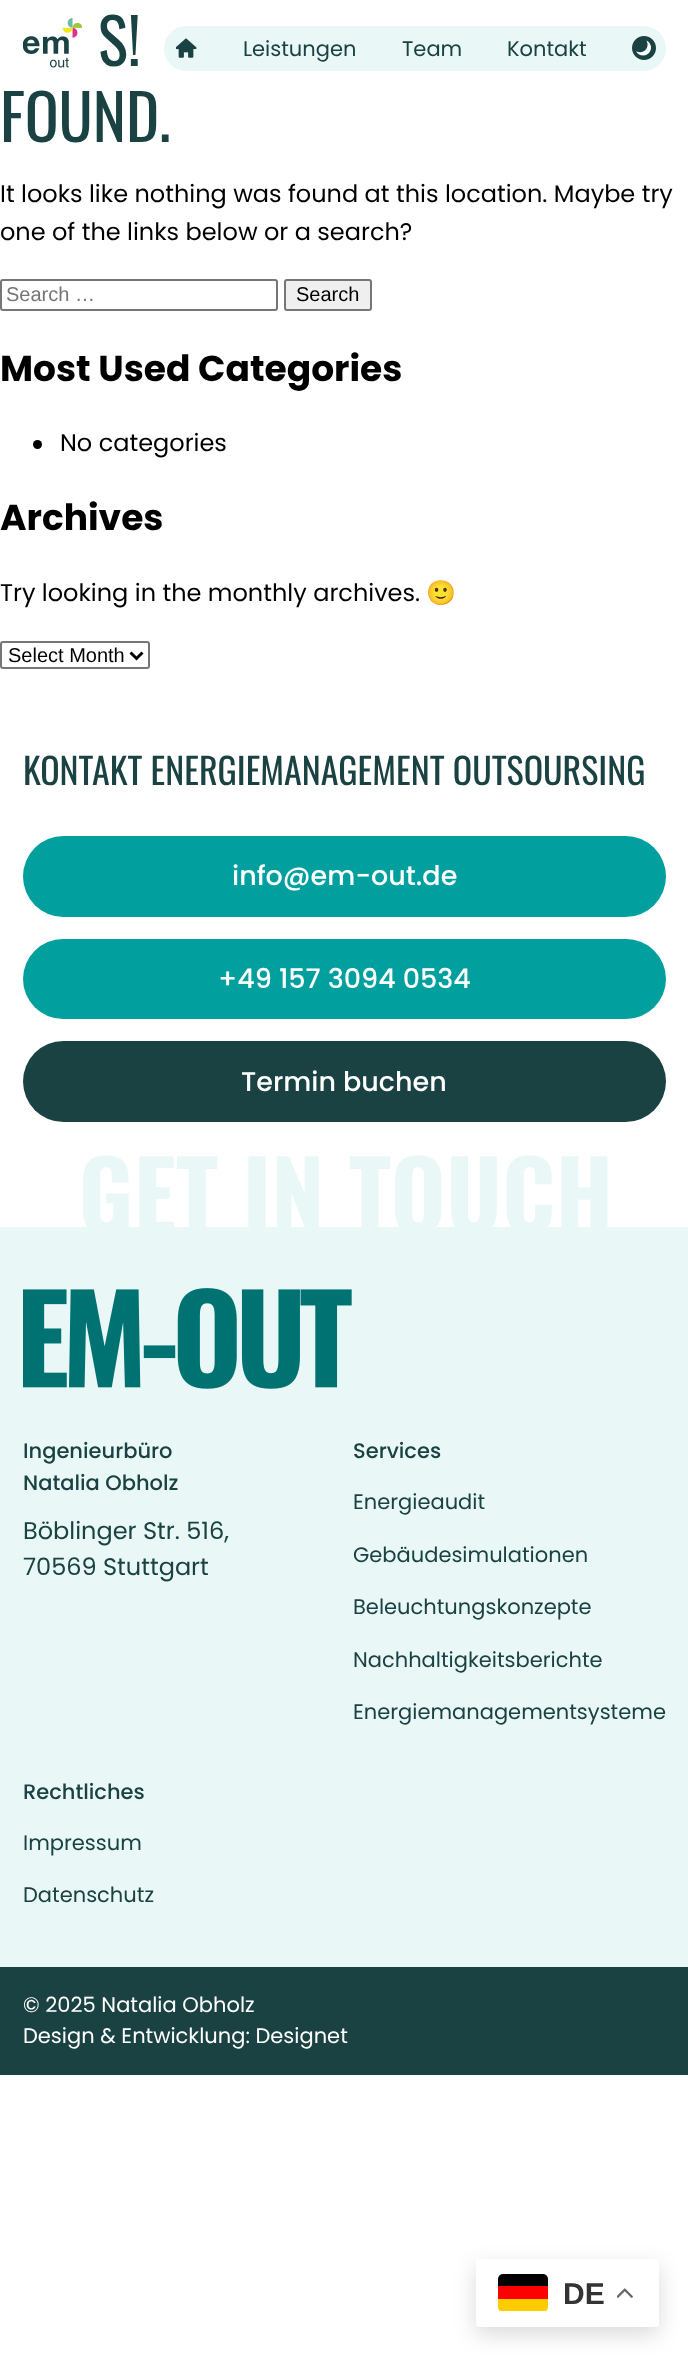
(async () => {
const canvas = document.querySelector("canvas")
canvas.width = 688
canvas.height = 2367
const c = canvas.getContext("2d")
c.miterLimit = 4
c.fontKerning = "normal"
function T(s,x,y){c.fillText(s,x,y)}
function R(x,y,w,h){c.fillRect(x,y,w,h)}
function Q(x,y,w,h,r){c.beginPath();c.roundRect(x,y,w,h,r);c.fill()}
async function I(src,x,y,w,h){const img=new Image();img.src=src;await img.decode();c.drawImage(img,x,y,w,h)}
let path
c.fillStyle="#fff"
R(0,0,688,2367)
c.font="63px Oswald"
c.fillStyle="#1a4242"
T("S!",98,66)
T("FOUND.",0,142)
c.font="24px Poppins"
c.fillStyle="#000"
T("It looks like nothing was found at this location. Maybe try",0,202)
T("one of the links below or a search?",0,240)
c.beginPath()
c.roundRect(1,280,276,30,2)
c.strokeStyle="#767676"
c.lineWidth=2
c.stroke()
c.font="20px Liberation Sans"
c.fillStyle="#757575"
T("Search …",6,301)
c.fillStyle="#efefef"
c.beginPath()
c.roundRect(285,280,86,30,2)
c.fill()
c.stroke()
c.fillStyle="#000"
T("Search",296,301)
c.font="bold 36px Poppins"
T("Most Used Categories",0,381)
c.beginPath()
c.arc(37.5,444.5,4.5,0,7)
c.fill()
c.font="24px Poppins"
T("No categories",60,451)
c.font="bold 36px Poppins"
T("Archives",0,530)
c.font="24px Poppins"
T("Try looking in the monthly archives.",0,601)
c.font="24px Noto Color Emoji"
T("🙂",426,601)
c.beginPath()
c.roundRect(1,642,148,26,2)
c.stroke()
path = new Path2D("M130.5 652.5l6 6l6-6")
c.strokeStyle="#000"
c.lineWidth=3
c.stroke(path)
c.font="20px Liberation Sans"
T("Select Month",8,662)
await I("1.png",23,18,59,50)
c.fillStyle="#e9f7f7"
Q(164,26,502,45,22.5)
await I("2.png",176,38,21,20)
c.font="21px Poppins"
c.fillStyle="#1a4242"
T("Leistungen",243,56)
T("Team",402,56)
T("Kontakt",507,56)
await I("3.png",632,36,24,24)
c.font="36px Oswald"
T("KONTAKT ENERGIEMANAGEMENT OUTSOURSING",23,785)
c.fillStyle="#029f9f"
Q(23,836,643,81,40.5)
c.font="500 27px Poppins"
c.fillStyle="#fff"
T("info@em-out.de",232,885)
c.fillStyle="#029f9f"
Q(23,939,643,80,40)
c.fillStyle="#fff"
T("+49 157 3094 0534",218,988)
c.fillStyle="#1a4242"
Q(23,1041,643,81,40.5)
c.fillStyle="#fff"
T("Termin buchen",241,1091)
await I("4.png",83,1155,525,72)
c.fillStyle="#e9f7f7"
R(0,1227,688,740)
await I("5.png",23,1288,329,101)
c.font="500 21px Poppins"
c.fillStyle="#1a4242"
T("Ingenieurbüro",23,1458)
T("Natalia Obholz",23,1490)
c.font="24px Poppins"
T("Böblinger Str. 516,",23,1539)
T("70569 Stuttgart",23,1575)
c.font="500 21px Poppins"
T("Services",353,1458)
c.font="21px Poppins"
T("Energieaudit",353,1509)
T("Gebäudesimulationen",353,1562)
T("Beleuchtungskonzepte",353,1614)
T("Nachhaltigkeitsberichte",353,1667)
T("Energiemanagementsysteme",353,1719)
c.font="500 21px Poppins"
T("Rechtliches",23,1799)
c.font="21px Poppins"
T("Impressum",23,1850)
T("Datenschutz",23,1902)
R(0,1967,688,108)
c.fillStyle="#fff"
T("© 2025 Natalia Obholz",23,2012)
T("Design & Entwicklung: Designet",23,2043)
c.fillStyle="#00000026"
c.filter="blur(11px)"
c.beginPath()
c.roundRect(476,2267,183,67,3)
c.fill()
c.filter="none"
c.fillStyle="#fff"
Q(476,2259,183,68,3)
c.save()
c.beginPath()
c.roundRect(498,2274,50,38,5)
c.clip()
c.fillStyle="#fc0"
R(498,2299,50,12)
c.restore()
c.fillStyle="#000"
c.beginPath()
c.roundRect(498,2274,50,12,[5,5,0,0])
c.fill()
c.fillStyle="#f00"
R(498,2286,50,13)
c.font="bold 30px Liberation Sans"
c.fillStyle="#333"
T("DE",563,2304)
await I("6.png",617,2288,16,10)
})()
